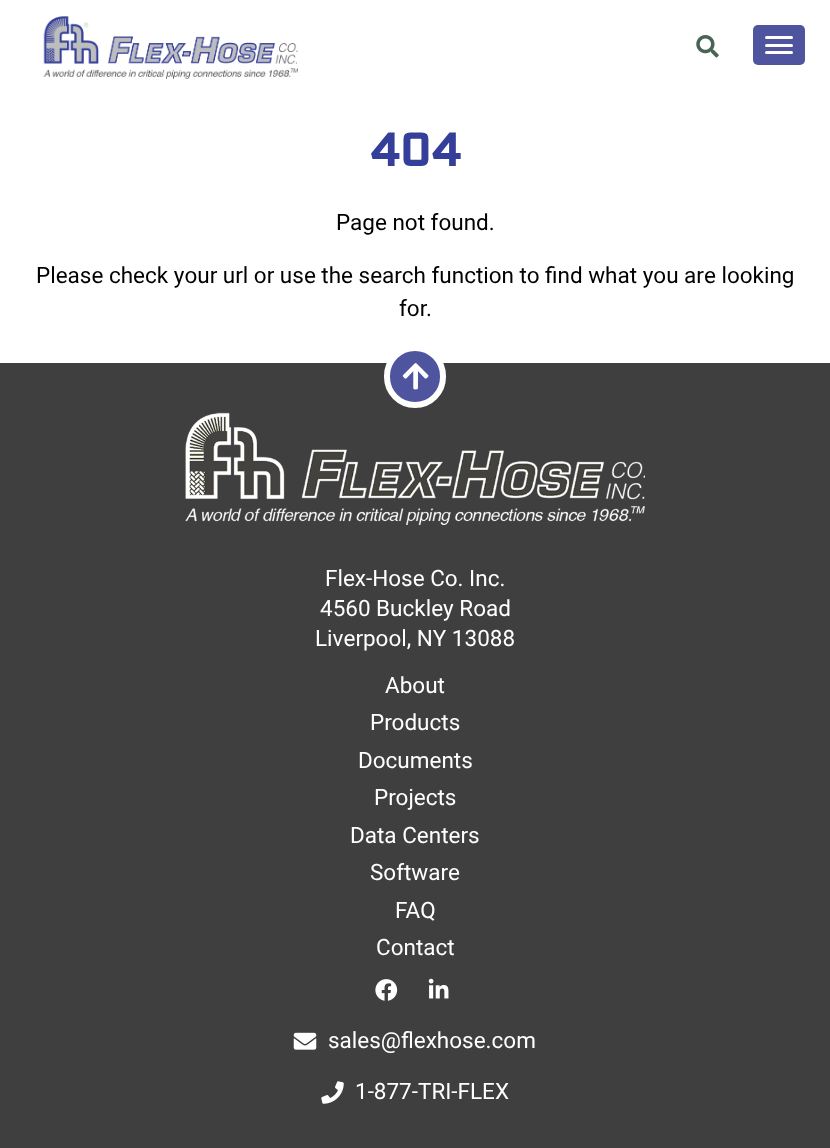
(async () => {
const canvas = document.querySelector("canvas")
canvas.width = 830
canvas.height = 1148
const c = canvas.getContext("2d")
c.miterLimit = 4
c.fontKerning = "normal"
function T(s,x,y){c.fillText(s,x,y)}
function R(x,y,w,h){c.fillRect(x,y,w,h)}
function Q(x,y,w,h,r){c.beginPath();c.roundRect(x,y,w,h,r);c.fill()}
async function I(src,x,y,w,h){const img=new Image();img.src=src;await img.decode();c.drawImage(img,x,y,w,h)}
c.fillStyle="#fff"
R(0,0,830,1148)
await I("1.png",43,16,256,63)
await I("2.png",696,35,23,23)
c.fillStyle="#4e559e"
Q(753,25,52,40,5)
c.fillStyle="#fff"
Q(765,36,28,3,1.5)
Q(765,44,28,3,1.5)
Q(765,51,28,3,1.5)
c.font="bold 48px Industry"
c.fillStyle="#353e99"
T("404",370,166)
c.font="22.5px Roboto"
c.fillStyle="#000"
T("Page not found.",336,230)
T("Please check your url or use the search function to find what you are looking",36,283)
T("for.",399,316)
c.fillStyle="#3f3f3f"
R(0,363,830,785)
c.fillStyle="#4e559e"
c.beginPath()
c.roundRect(387,348,56,57,28)
c.fill()
c.strokeStyle="#fff"
c.lineWidth=6
c.stroke()
await I("3.png",402,363,27,27)
await I("4.png",185,412,460,113)
c.fillStyle="#fff"
T("Flex-Hose Co. Inc.",325,586)
T("4560 Buckley Road",320,616)
T("Liverpool, NY 13088",315,646)
T("About",385,693)
T("Products",370,730)
T("Documents",358,768)
T("Projects",374,805)
T("Data Centers",350,843)
T("Software",370,880)
T("FAQ",395,918)
T("Contact",376,955)
await I("5.png",375,979,23,22)
await I("6.png",428,978,21,21)
await I("7.png",293,1032,24,18)
T("sales@flexhose.com",328,1048)
await I("8.png",321,1081,23,23)
T("1-877-TRI-FLEX",355,1099)
})()
